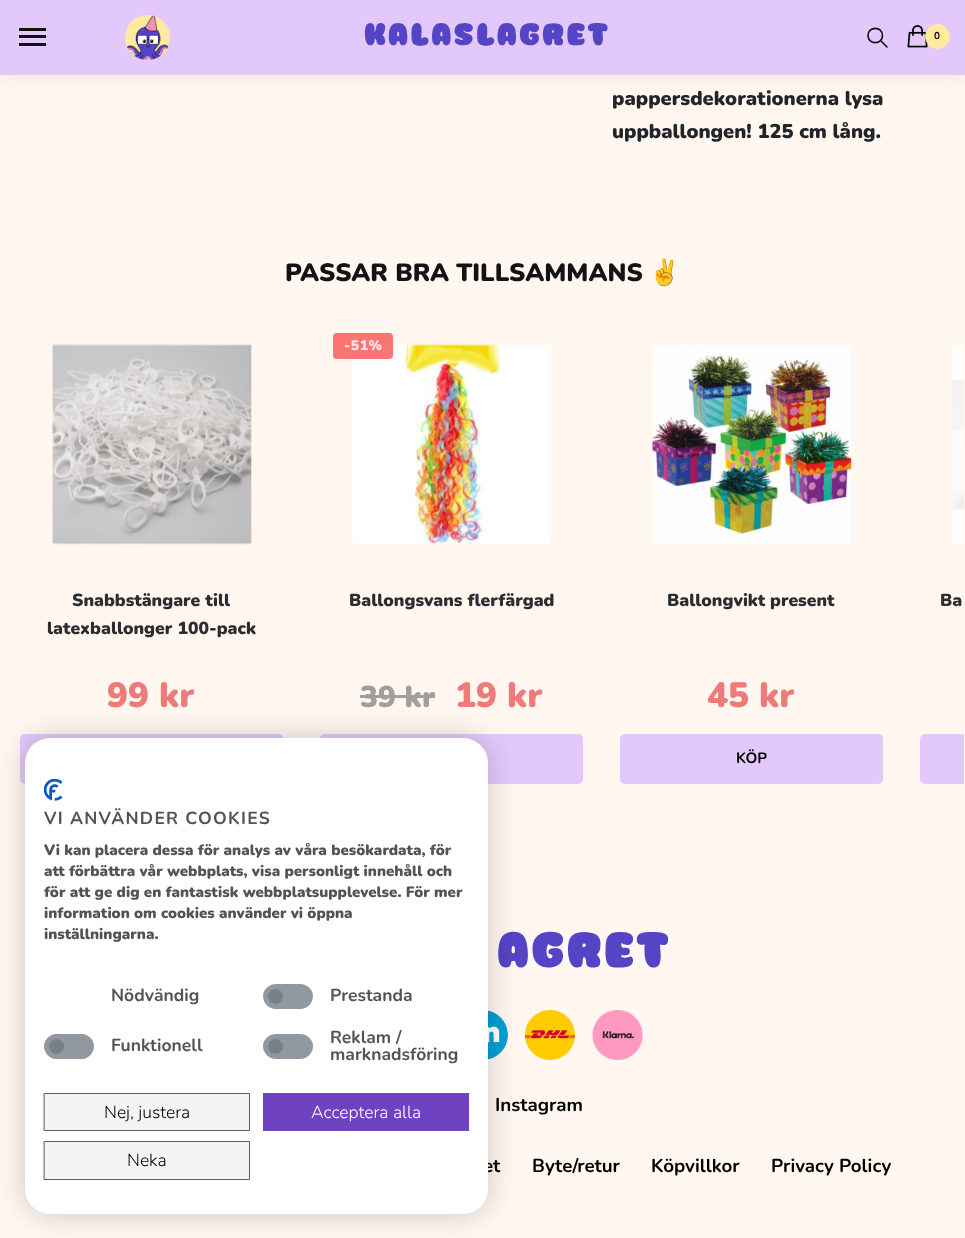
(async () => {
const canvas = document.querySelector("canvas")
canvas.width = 965
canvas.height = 1238
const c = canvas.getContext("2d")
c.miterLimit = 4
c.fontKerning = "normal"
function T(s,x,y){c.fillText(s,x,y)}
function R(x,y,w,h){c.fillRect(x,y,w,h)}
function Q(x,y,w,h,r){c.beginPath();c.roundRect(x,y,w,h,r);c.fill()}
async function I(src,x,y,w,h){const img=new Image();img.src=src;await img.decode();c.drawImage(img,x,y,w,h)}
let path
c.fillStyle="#fff7f0"
R(0,0,965,1238)
c.fillStyle="#00000014"
c.filter="blur(9.5px)"
c.beginPath()
c.rect(0,1,965,75)
c.fill()
c.filter="none"
c.fillStyle="#e3c9fb"
R(0,0,965,75)
c.fillStyle="#111"
R(19,28,27,3)
R(19,35,27,3)
R(19,43,27,3)
await I("1.png",125,15,46,45)
c.letterSpacing="2.5px"
c.font="30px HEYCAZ"
c.fillStyle="#5644c6"
T("KALASLAGRET",364,45)
path = new Path2D("M887 47l-6.5-6.5m2-5c0 9.5-14.5 9.5-14.5 0c0-9.5 14.5-9.5 14.5 0z")
c.strokeStyle="#111"
c.lineWidth=1.6
c.lineCap="round"
c.lineJoin="round"
c.stroke(path)
await I("2.png",907,25,21,23)
c.fillStyle="#ffea9f"
c.beginPath()
c.arc(937.5,36.5,12,0,7)
c.fill()
c.strokeStyle="#ffea9f"
c.lineWidth=1
c.stroke()
c.letterSpacing="1.25px"
c.font="bold 10px Nunito"
c.fillStyle="#000"
T("0",934,39)
c.letterSpacing="0px"
c.font="900 20px Nunito"
c.fillStyle="#212529"
T("pappersdekorationerna lysa",612,105)
T("uppballongen! 125 cm lång.",612,138)
c.font="900 25px 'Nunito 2'"
c.fillStyle="#131315"
T("PASSAR BRA TILLSAMMANS",285,281)
c.font="bold 25px Noto Color Emoji"
T("✌️",649,281)
await I("3.png",52,344,200,201)
c.font="900 17.5px 'Nunito 2'"
c.fillStyle="#2c2d33"
T("Snabbstängare till",72,606)
T("latexballonger 100-pack",47,634)
c.font="900 35px 'Nunito 2'"
c.fillStyle="#ef7a7a"
T("99 kr",107,707)
c.fillStyle="#e3c9fb"
Q(20,734,263,50,5)
await I("4.png",352,344,200,200)
c.fillStyle="#f95353cc"
Q(333,333,60,26,4)
c.letterSpacing="0.5px"
c.font="900 14px Nunito"
c.fillStyle="#fee3e3"
T("-51%",344,350)
c.letterSpacing="0px"
c.font="900 17.5px 'Nunito 2'"
c.fillStyle="#2c2d33"
T("Ballongsvans flerfärgad",349,606)
c.font="900 30px 'Nunito 2'"
c.fillStyle="#a19e9e"
T("39 kr",360,707)
R(360,695,75,3)
c.font="900 35px 'Nunito 2'"
c.fillStyle="#ef7a7a"
T("19 kr",455,707)
c.fillStyle="#e3c9fb"
Q(320,734,263,50,5)
await I("5.png",652,345,200,199)
c.font="900 17.5px 'Nunito 2'"
c.fillStyle="#2c2d33"
T("Ballongvikt present",667,606)
c.font="900 35px 'Nunito 2'"
c.fillStyle="#ef7a7a"
T("45 kr",707,707)
c.fillStyle="#e3c9fb"
Q(620,734,263,50,5)
c.font="bold 15px Nunito"
c.fillStyle="#000"
T("KÖP",736,763)
await I("6.png",952,345,12,199)
c.font="900 17.5px 'Nunito 2'"
c.fillStyle="#2c2d33"
T("Ba",940,606)
c.fillStyle="#e3c9fb"
c.beginPath()
c.roundRect(920,734,44,50,[5,0,0,5])
c.fill()
c.letterSpacing="2.5px"
c.font="48px HEYCAZ"
c.fillStyle="#5644c6"
T("AGRET",497,967)
await I("7.png",488,1010,20,50)
await I("8.png",525,1010,50,50)
await I("9.png",592,1010,51,50)
c.letterSpacing="0px"
c.font="bold 18.75px Nunito"
c.fillStyle="#000"
T("Instagram",495,1111)
T("et",483,1172)
T("Byte/retur",532,1172)
T("Köpvillkor",651,1172)
T("Privacy Policy",771,1172)
c.fillStyle="#00000033"
c.filter="blur(15px)"
c.beginPath()
c.roundRect(25,738,463,476,25)
c.fill()
c.filter="none"
c.fillStyle="#fff"
Q(25,738,463,476,25)
await I("10.png",44,779,19,22)
c.letterSpacing="1.25px"
c.font="bold 17.5px Nunito"
c.fillStyle="#535353"
T("VI ANVÄNDER COOKIES",44,824)
c.letterSpacing="0px"
c.font="900 15px Nunito"
T("Vi kan placera dessa för analys av våra besökardata, för",44,855)
T("att förbättra vår webbplats, visa personligt innehåll och",44,876)
T("för att ge dig en fantastisk webbplatsupplevelse. För mer",44,897)
T("information om cookies använder vi öppna",44,918)
T("inställningarna.",44,939)
c.font="bold 17.5px Nunito"
T("Nödvändig",111,1001)
c.fillStyle="#e9ecef"
Q(263,984,50,25,12.5)
c.fillStyle="#92999f"
c.beginPath()
c.arc(275.5,996.5,7.5,0,7)
c.fill()
c.fillStyle="#6c757db3"
path = new Path2D("M276 984h24c7 0 13 6 13 12c0 7-6 13-13 13h-24c-7 0-13-6-13-13c0-6 6-12 13-12z")
c.fill(path)
c.fillStyle="#535353"
T("Prestanda",330,1001)
c.fillStyle="#e9ecef"
Q(44,1034,50,25,12.5)
c.fillStyle="#92999f"
c.beginPath()
c.arc(56.5,1046.5,7.5,0,7)
c.fill()
c.fillStyle="#6c757db3"
path = new Path2D("M56 1034h26c6 0 12 6 12 12c0 7-6 13-12 13h-26c-6 0-12-6-12-13c0-6 6-12 12-12z")
c.fill(path)
c.fillStyle="#535353"
T("Funktionell",111,1051)
c.fillStyle="#e9ecef"
Q(263,1034,50,25,12.5)
c.fillStyle="#92999f"
c.beginPath()
c.arc(275.5,1046.5,7.5,0,7)
c.fill()
c.fillStyle="#6c757db3"
path = new Path2D("M276 1034h24c7 0 13 6 13 12c0 7-6 13-13 13h-24c-7 0-13-6-13-13c0-6 6-12 13-12z")
c.fill(path)
c.fillStyle="#535353"
T("Reklam /",330,1043)
T("marknadsföring",330,1060)
c.fillStyle="#f4f4f4"
c.beginPath()
c.rect(44.5,1093.5,205,37)
c.fill()
c.strokeStyle="#5b5b5b"
c.lineJoin="miter"
c.stroke()
c.font="300 17.5px Nunito"
c.fillStyle="#000"
T("Nej, justera",104,1118)
c.fillStyle="#6f42c1"
R(263,1093,206,38)
c.fillStyle="#fff"
T("Acceptera alla",311,1118)
c.fillStyle="#f4f4f4"
c.beginPath()
c.rect(44.5,1141.5,205,38)
c.fill()
c.stroke()
c.fillStyle="#000"
T("Neka",127,1166)
})()
